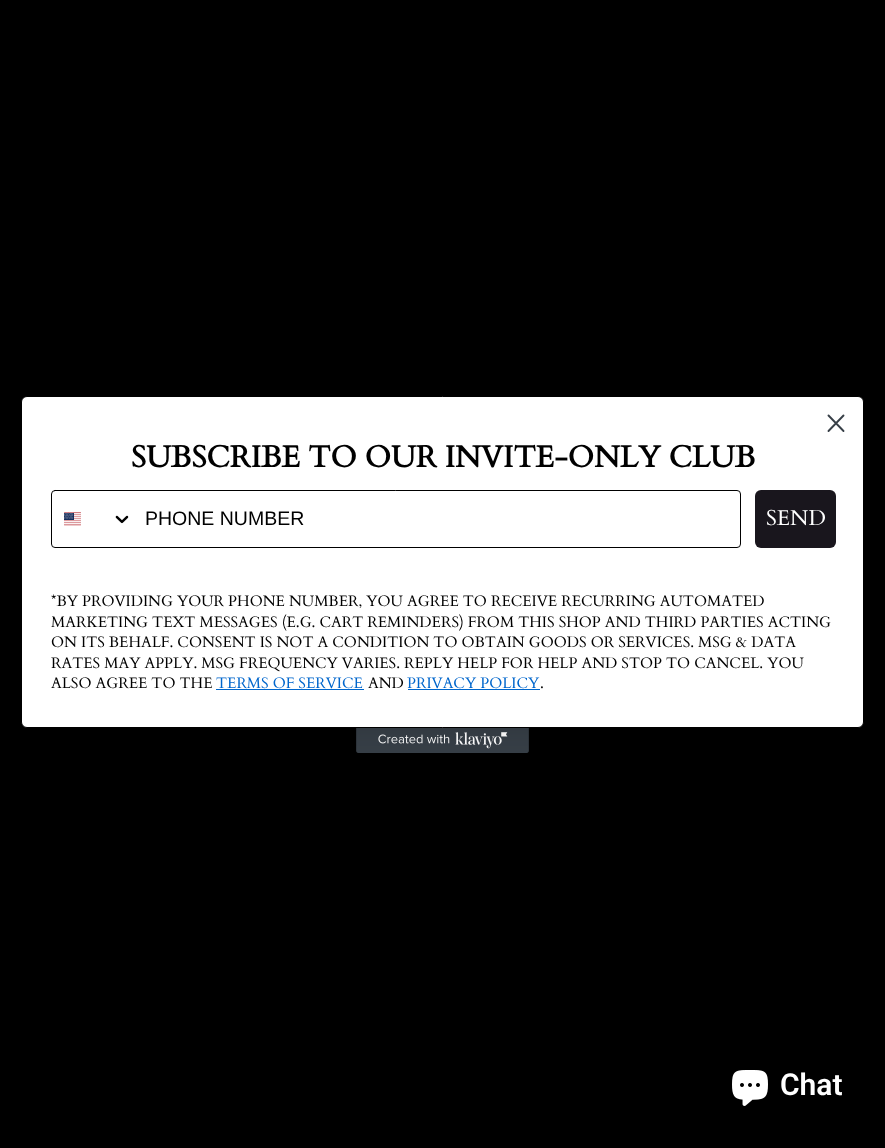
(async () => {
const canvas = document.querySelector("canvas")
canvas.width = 885
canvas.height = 1148
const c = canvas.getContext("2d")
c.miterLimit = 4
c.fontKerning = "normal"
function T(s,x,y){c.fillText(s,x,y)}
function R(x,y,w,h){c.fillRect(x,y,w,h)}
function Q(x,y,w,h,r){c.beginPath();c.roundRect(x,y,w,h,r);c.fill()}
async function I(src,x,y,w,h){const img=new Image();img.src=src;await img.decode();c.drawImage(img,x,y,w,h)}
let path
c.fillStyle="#000"
R(0,0,885,1148)
await I("3.png",356,728,173,25)
c.fillStyle="#00000026"
c.filter="blur(16px)"
c.beginPath()
c.roundRect(21,396,843,332,6)
c.fill()
c.filter="none"
c.fillStyle="#fff"
c.beginPath()
c.roundRect(21.5,396.5,842,331,5.5)
c.fill()
c.strokeStyle="#000"
c.stroke()
path = new Path2D("M828.5 415.5l15 15.5m-15 0l15-15.5z")
c.strokeStyle="#373f47"
c.lineWidth=1.9
c.lineCap="round"
c.lineJoin="round"
c.stroke(path)
c.font="bold 30.25px Cardo"
c.fillStyle="#000"
T("SUBSCRIBE TO OUR INVITE-ONLY CLUB",131,467)
c.beginPath()
c.roundRect(51.5,490.5,689,57,3.5)
c.strokeStyle="#000"
c.lineWidth=1
c.lineJoin="miter"
c.stroke()
await I("1.png",64,512,17,14)
await I("2.png",115,515,14,9)
c.font="19.5px Liberation Sans"
T("PHONE NUMBER",145,525)
c.fillStyle="#19161d"
Q(755,490,81,58,6)
c.font="21.5px Cardo"
c.fillStyle="#fff"
T("SEND",766,525)
c.font="15.1px Cardo"
c.fillStyle="#000"
T("*BY PROVIDING YOUR PHONE NUMBER, YOU AGREE TO RECEIVE RECURRING AUTOMATED",51,606)
T("MARKETING TEXT MESSAGES (E.G. CART REMINDERS) FROM THIS SHOP AND THIRD PARTIES ACTING",51,627)
T("ON ITS BEHALF. CONSENT IS NOT A CONDITION TO OBTAIN GOODS OR SERVICES. MSG & DATA",51,647)
T("RATES MAY APPLY. MSG FREQUENCY VARIES. REPLY HELP FOR HELP AND STOP TO CANCEL. YOU",51,668)
T("ALSO AGREE TO THE",51,688)
c.fillStyle="#06c"
T("TERMS OF SERVICE",216,688)
R(216,689,148,1)
c.fillStyle="#000"
T("AND",368,688)
c.fillStyle="#06c"
T("PRIVACY POLICY",407,688)
R(408,689,132,1)
c.fillStyle="#000"
T(".",540,688)
await I("4.png",732,1070,36,36)
c.font="600 30px Roboto"
c.fillStyle="#fff"
T("Chat",780,1095)
})()
